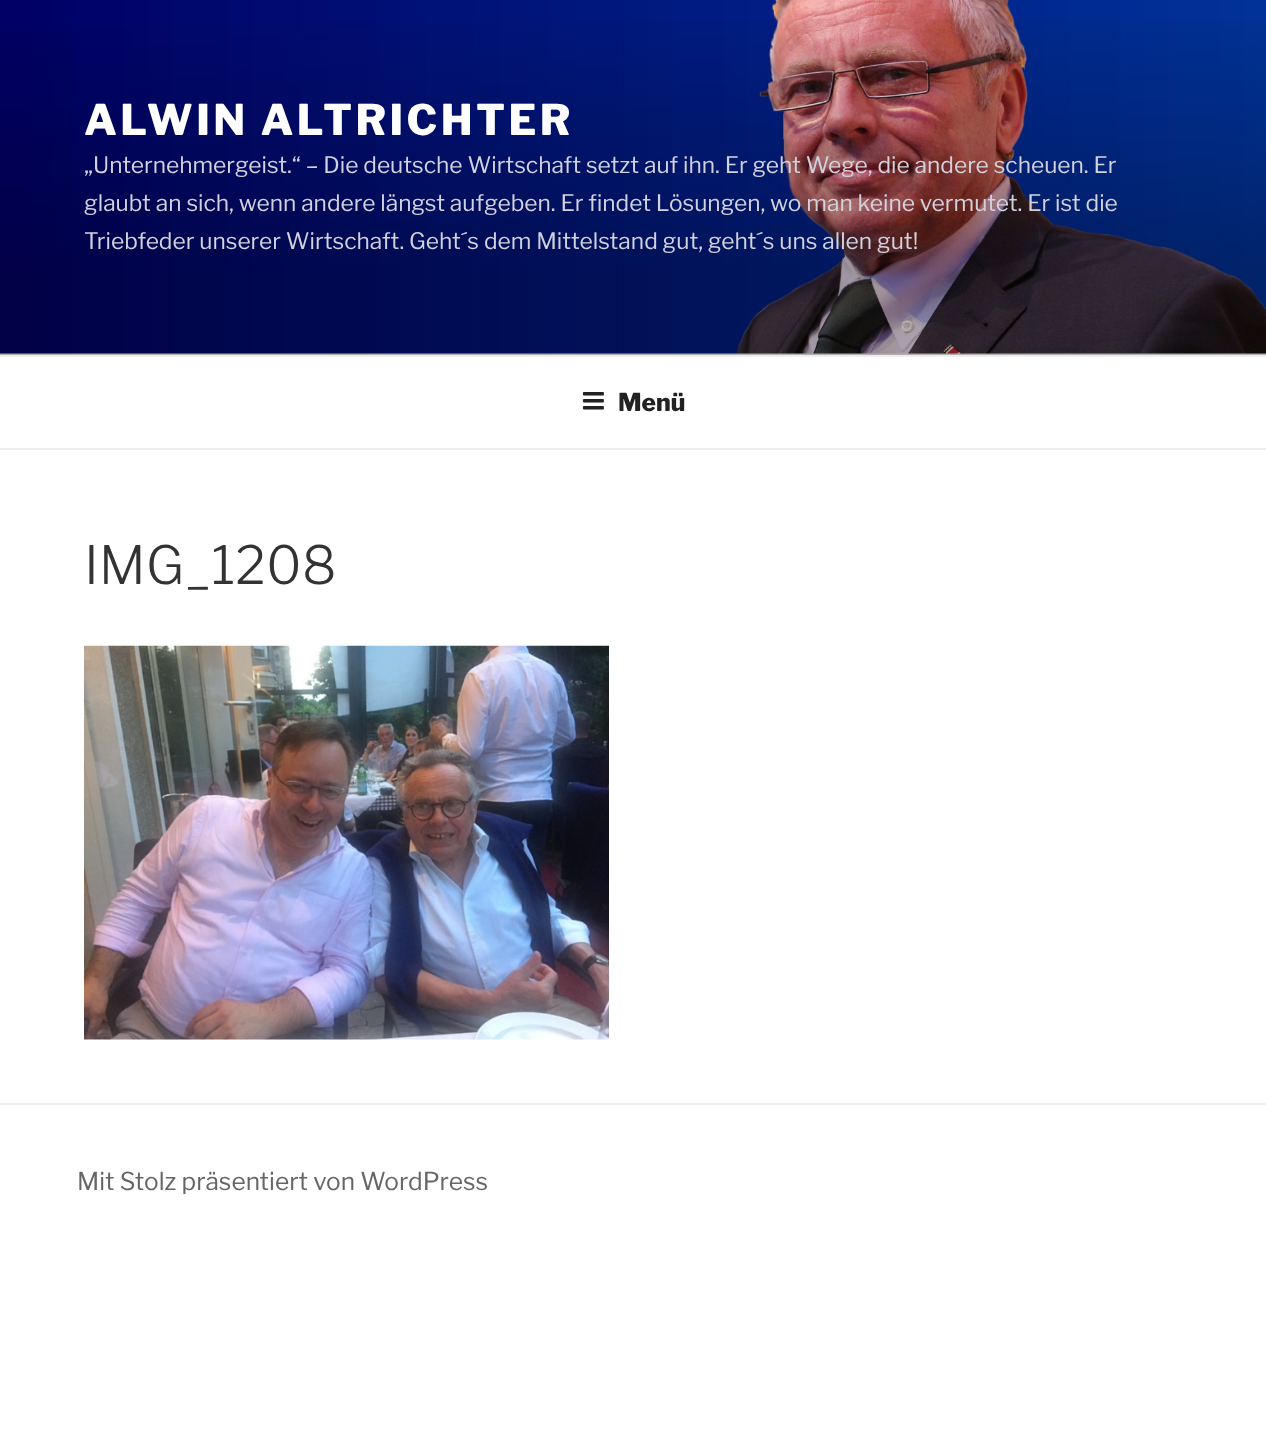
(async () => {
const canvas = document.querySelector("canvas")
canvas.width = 1266
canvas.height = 1433
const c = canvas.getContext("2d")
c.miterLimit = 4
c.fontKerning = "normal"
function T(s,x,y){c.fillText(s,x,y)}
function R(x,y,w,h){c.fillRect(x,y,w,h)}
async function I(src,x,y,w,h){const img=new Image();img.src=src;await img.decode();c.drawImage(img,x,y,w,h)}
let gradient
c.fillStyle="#fff"
R(0,0,1266,1433)
c.fillStyle="#fafafa"
R(0,353,1266,2)
await I("1.png",0,0,1266,354)
gradient = c.createLinearGradient(634,0,634,355)
gradient.addColorStop(0,"#00000000")
gradient.addColorStop(.75,"#0000004d")
gradient.addColorStop(1,"#0000004d")
c.fillStyle = gradient
R(0,19,1266,336)
c.letterSpacing="3.4px"
c.font="100 42px Libre Franklin"
c.fillStyle="#fff"
T("ALWIN ALTRICHTER",84,135)
c.letterSpacing="0px"
c.font="100 22.75px 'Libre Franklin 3'"
c.fillStyle="#d2d1de"
T("„Unternehmergeist.“ – Die deutsche Wirtschaft setzt auf ihn. Er geht Wege, die andere scheuen. Er",84,173)
T("glaubt an sich, wenn andere längst aufgeben. Er findet Lösungen, wo man keine vermutet. Er ist die",84,211)
T("Triebfeder unserer Wirtschaft. Geht´s dem Mittelstand gut, geht´s uns allen gut!",84,249)
c.fillStyle="#eee"
R(0,355,1266,2)
R(0,448,1266,2)
await I("2.png",582,392,22,18)
c.font="100 24.5px Libre Franklin"
c.fillStyle="#222"
T("Menü",618,411)
c.font="100 52.5px 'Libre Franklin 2'"
c.fillStyle="#333"
T("IMG_1208",84,584)
await I("3.png",84,645,525,395)
c.fillStyle="#eee"
R(0,1103,1266,2)
c.font="100 24.5px 'Libre Franklin 3'"
c.fillStyle="#666"
T("Mit Stolz präsentiert von WordPress",77,1190)
})()
